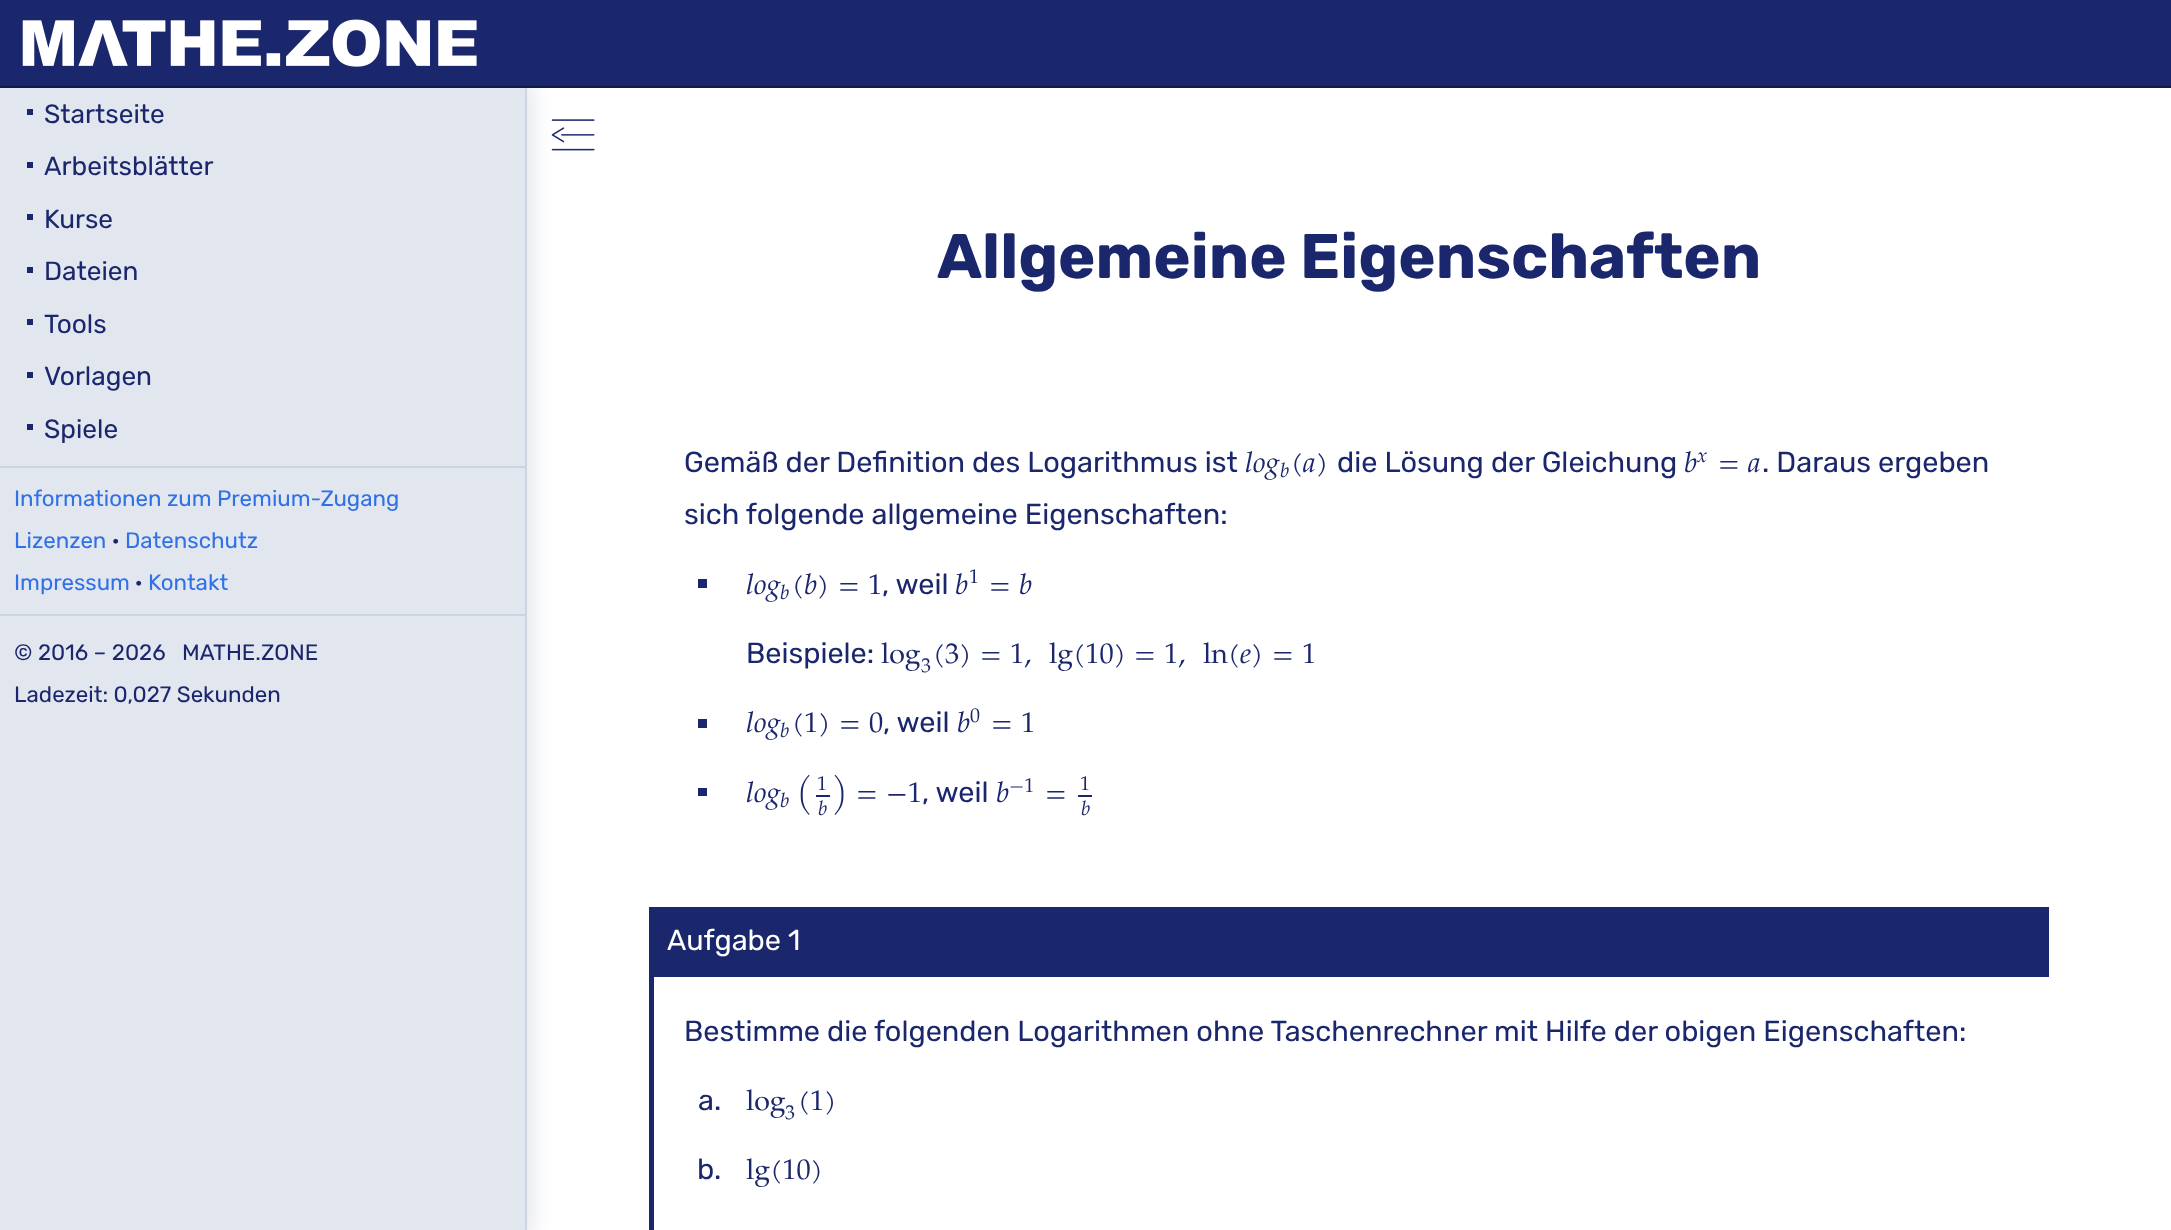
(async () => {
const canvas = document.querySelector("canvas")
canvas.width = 2171
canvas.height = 1230
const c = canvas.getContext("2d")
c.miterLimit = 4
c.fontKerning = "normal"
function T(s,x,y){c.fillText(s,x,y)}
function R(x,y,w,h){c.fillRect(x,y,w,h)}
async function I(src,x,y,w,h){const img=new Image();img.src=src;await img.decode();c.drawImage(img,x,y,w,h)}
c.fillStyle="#fff"
R(0,0,2171,1230)
c.fillStyle="#1b276d1a"
c.filter="blur(9px)"
c.beginPath()
c.rect(-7,81,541,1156)
c.fill()
c.filter="none"
c.fillStyle="#1b276d"
R(0,0,2171,86)
c.fillStyle="#131b4c"
R(0,86,2171,2)
await I("1.png",22,19,455,48)
c.fillStyle="#e1e6ef"
R(0,88,525,1142)
c.fillStyle="#cdd3e2"
R(525,88,2,1142)
c.fillStyle="#1b276d"
R(27,109,6,6)
c.font="26.25px Rubik"
T("Startseite",44,123)
R(27,162,6,6)
T("Arbeitsblätter",44,175)
R(27,214,6,6)
T("Kurse",44,228)
R(27,267,6,6)
T("Dateien",44,280)
R(27,319,6,6)
T("Tools",44,333)
R(27,372,6,6)
T("Vorlagen",44,385)
R(27,424,6,6)
T("Spiele",44,438)
c.fillStyle="#cdd3e2"
R(0,466,525,2)
c.font="22.3px Rubik"
c.fillStyle="#3071e5"
T("Informationen zum Premium-Zugang",14,506)
T("Lizenzen",14,548)
c.fillStyle="#1b276d"
T("·",112,548)
c.fillStyle="#3071e5"
T("Datenschutz",125,548)
T("Impressum",14,590)
c.fillStyle="#1b276d"
T("·",135,590)
c.fillStyle="#3071e5"
T("Kontakt",148,590)
c.fillStyle="#cdd3e2"
R(0,614,525,2)
c.fillStyle="#1b276d"
T("© 2016 – 2026   MATHE.ZONE",14,660)
T("Ladezeit: 0,027 Sekunden",14,702)
await I("2.png",551,119,44,32)
c.font="bold 63px Rubik"
T("Allgemeine Eigenschaften",937,278)
c.font="28.9px Rubik"
T("Gemäß der Definition des Logarithmus ist",684,472)
c.font="28.5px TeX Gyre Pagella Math"
T("𝑙𝑜𝑔",1245,472)
c.font="20px TeX Gyre Pagella Math"
T("𝑏",1280,477)
c.font="28.5px 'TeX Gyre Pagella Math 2'"
T("(",1291,472)
c.font="28.5px TeX Gyre Pagella Math"
T("𝑎",1303,472)
c.font="28.5px 'TeX Gyre Pagella Math 2'"
T(")",1316,472)
c.font="28.9px Rubik"
T("die Lösung der Gleichung",1337,472)
c.font="28.5px TeX Gyre Pagella Math"
T("𝑏",1684,472)
c.font="20px TeX Gyre Pagella Math"
T("𝑥",1697,462)
c.font="28.5px 'TeX Gyre Pagella Math 2'"
T("=",1718,472)
c.font="28.5px TeX Gyre Pagella Math"
T("𝑎",1748,472)
c.font="28.9px Rubik"
T(". Daraus ergeben",1762,472)
T("sich folgende allgemeine Eigenschaften:",684,524)
R(698,579,9,9)
c.font="28.5px TeX Gyre Pagella Math"
T("𝑙𝑜𝑔",746,594)
c.font="20px TeX Gyre Pagella Math"
T("𝑏",780,599)
c.font="28.5px 'TeX Gyre Pagella Math 2'"
T("(",792,594)
c.font="28.5px TeX Gyre Pagella Math"
T("𝑏",804,594)
c.font="28.5px 'TeX Gyre Pagella Math 2'"
T(")",817,594)
T("=",838,594)
T("1",868,594)
c.font="28.9px Rubik"
T(", weil",882,594)
c.font="28.5px TeX Gyre Pagella Math"
T("𝑏",955,594)
c.font="20px 'TeX Gyre Pagella Math 2'"
T("1",969,583)
c.font="28.5px 'TeX Gyre Pagella Math 2'"
T("=",989,594)
c.font="28.5px TeX Gyre Pagella Math"
T("𝑏",1019,594)
c.font="28.9px Rubik"
T("Beispiele:",746,663)
c.font="28.5px 'TeX Gyre Pagella Math 2'"
T("log",881,663)
c.font="20px 'TeX Gyre Pagella Math 2'"
T("3",921,672)
c.font="28.5px 'TeX Gyre Pagella Math 2'"
T("(3)",933,663)
T("=",980,663)
T("1,",1010,663)
T("lg(10)",1049,663)
T("=",1134,663)
T("1,",1164,663)
T("ln(",1203,663)
c.font="28.5px TeX Gyre Pagella Math"
T("𝑒",1240,663)
c.font="28.5px 'TeX Gyre Pagella Math 2'"
T(")",1251,663)
T("=",1272,663)
T("1",1302,663)
R(698,719,9,9)
c.font="28.5px TeX Gyre Pagella Math"
T("𝑙𝑜𝑔",746,732)
c.font="20px TeX Gyre Pagella Math"
T("𝑏",780,737)
c.font="28.5px 'TeX Gyre Pagella Math 2'"
T("(1)",792,732)
T("=",839,732)
T("0",869,732)
c.font="28.9px Rubik"
T(", weil",883,732)
c.font="28.5px TeX Gyre Pagella Math"
T("𝑏",957,732)
c.font="20px 'TeX Gyre Pagella Math 2'"
T("0",970,722)
c.font="28.5px 'TeX Gyre Pagella Math 2'"
T("=",991,732)
T("1",1021,732)
R(698,788,9,8)
c.font="28.5px TeX Gyre Pagella Math"
T("𝑙𝑜𝑔",746,802)
c.font="20px TeX Gyre Pagella Math"
T("𝑏",780,807)
c.font="28.5px 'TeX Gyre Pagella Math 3'"
T("(",797,802)
c.font="20px 'TeX Gyre Pagella Math 2'"
T("1",817,790)
R(816,795,14,2)
c.font="20px TeX Gyre Pagella Math"
T("𝑏",818,815)
c.font="28.5px 'TeX Gyre Pagella Math 3'"
T(")",832,802)
c.font="28.5px 'TeX Gyre Pagella Math 2'"
T("=",856,802)
T("−1",886,802)
c.font="28.9px Rubik"
T(", weil",922,802)
c.font="28.5px TeX Gyre Pagella Math"
T("𝑏",996,802)
c.font="20px 'TeX Gyre Pagella Math 2'"
T("−1",1009,792)
c.font="28.5px 'TeX Gyre Pagella Math 2'"
T("=",1045,802)
c.font="20px 'TeX Gyre Pagella Math 2'"
T("1",1080,790)
R(1078,795,14,2)
c.font="20px TeX Gyre Pagella Math"
T("𝑏",1081,815)
R(649,907,1400,70)
c.font="28.9px Rubik"
c.fillStyle="#fff"
T("Aufgabe 1",667,950)
c.fillStyle="#1b276d"
R(649,977,5,253)
T("Bestimme die folgenden Logarithmen ohne Taschenrechner mit Hilfe der obigen Eigenschaften:",684,1041)
T("a.",698,1110)
c.font="28.5px 'TeX Gyre Pagella Math 2'"
T("log",746,1110)
c.font="20px 'TeX Gyre Pagella Math 2'"
T("3",785,1119)
c.font="28.5px 'TeX Gyre Pagella Math 2'"
T("(1)",798,1110)
c.font="28.9px Rubik"
T("b.",697,1179)
c.font="28.5px 'TeX Gyre Pagella Math 2'"
T("lg(10)",746,1179)
})()
